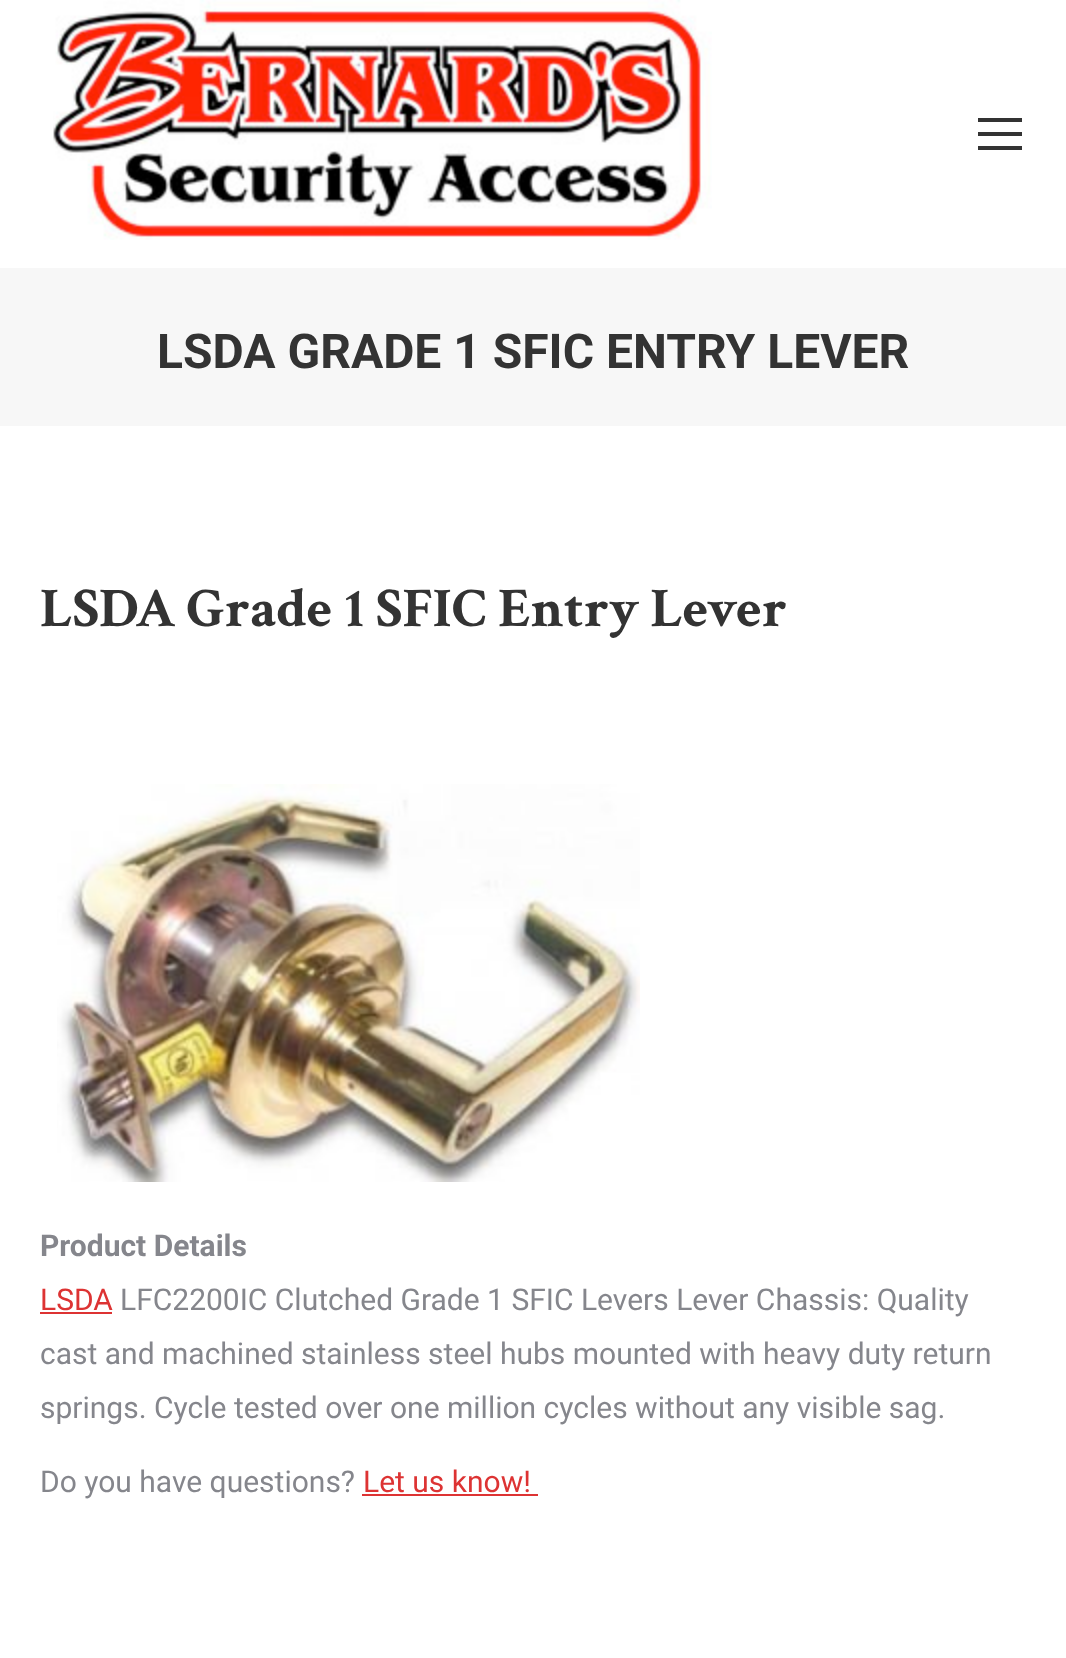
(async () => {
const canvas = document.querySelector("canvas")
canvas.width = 1066
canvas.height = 1658
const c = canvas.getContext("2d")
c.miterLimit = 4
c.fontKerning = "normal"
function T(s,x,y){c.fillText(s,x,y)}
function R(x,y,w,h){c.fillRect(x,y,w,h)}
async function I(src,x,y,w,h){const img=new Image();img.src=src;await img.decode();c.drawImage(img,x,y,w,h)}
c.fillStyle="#fff"
R(0,0,1066,1658)
await I("1.png",53,0,659,240)
c.fillStyle="#333"
R(978,118,44,4)
R(978,132,44,4)
R(978,146,44,4)
c.fillStyle="#f7f7f7"
R(0,268,1066,158)
c.font="bold 48px Roboto"
c.fillStyle="#333"
T("LSDA GRADE 1 SFIC ENTRY LEVER",157,368)
c.font="bold 56px Crimson Text"
T("LSDA Grade 1 SFIC Entry Lever",40,626)
await I("2.png",57,784,583,398)
c.font="bold 30px Roboto"
c.fillStyle="#85868c"
T("Product Details",40,1256)
c.font="30px Roboto"
c.fillStyle="#d33"
T("LSDA",40,1310)
R(40,1312,72,2)
c.fillStyle="#85868c"
T("LFC2200IC Clutched Grade 1 SFIC Levers Lever Chassis: Quality",120,1310)
T("cast and machined stainless steel hubs mounted with heavy duty return",40,1364)
T("springs. Cycle tested over one million cycles without any visible sag.",40,1418)
T("Do you have questions?",40,1492)
c.fillStyle="#d33"
T("Let us know!",363,1492)
R(362,1494,176,2)
})()
